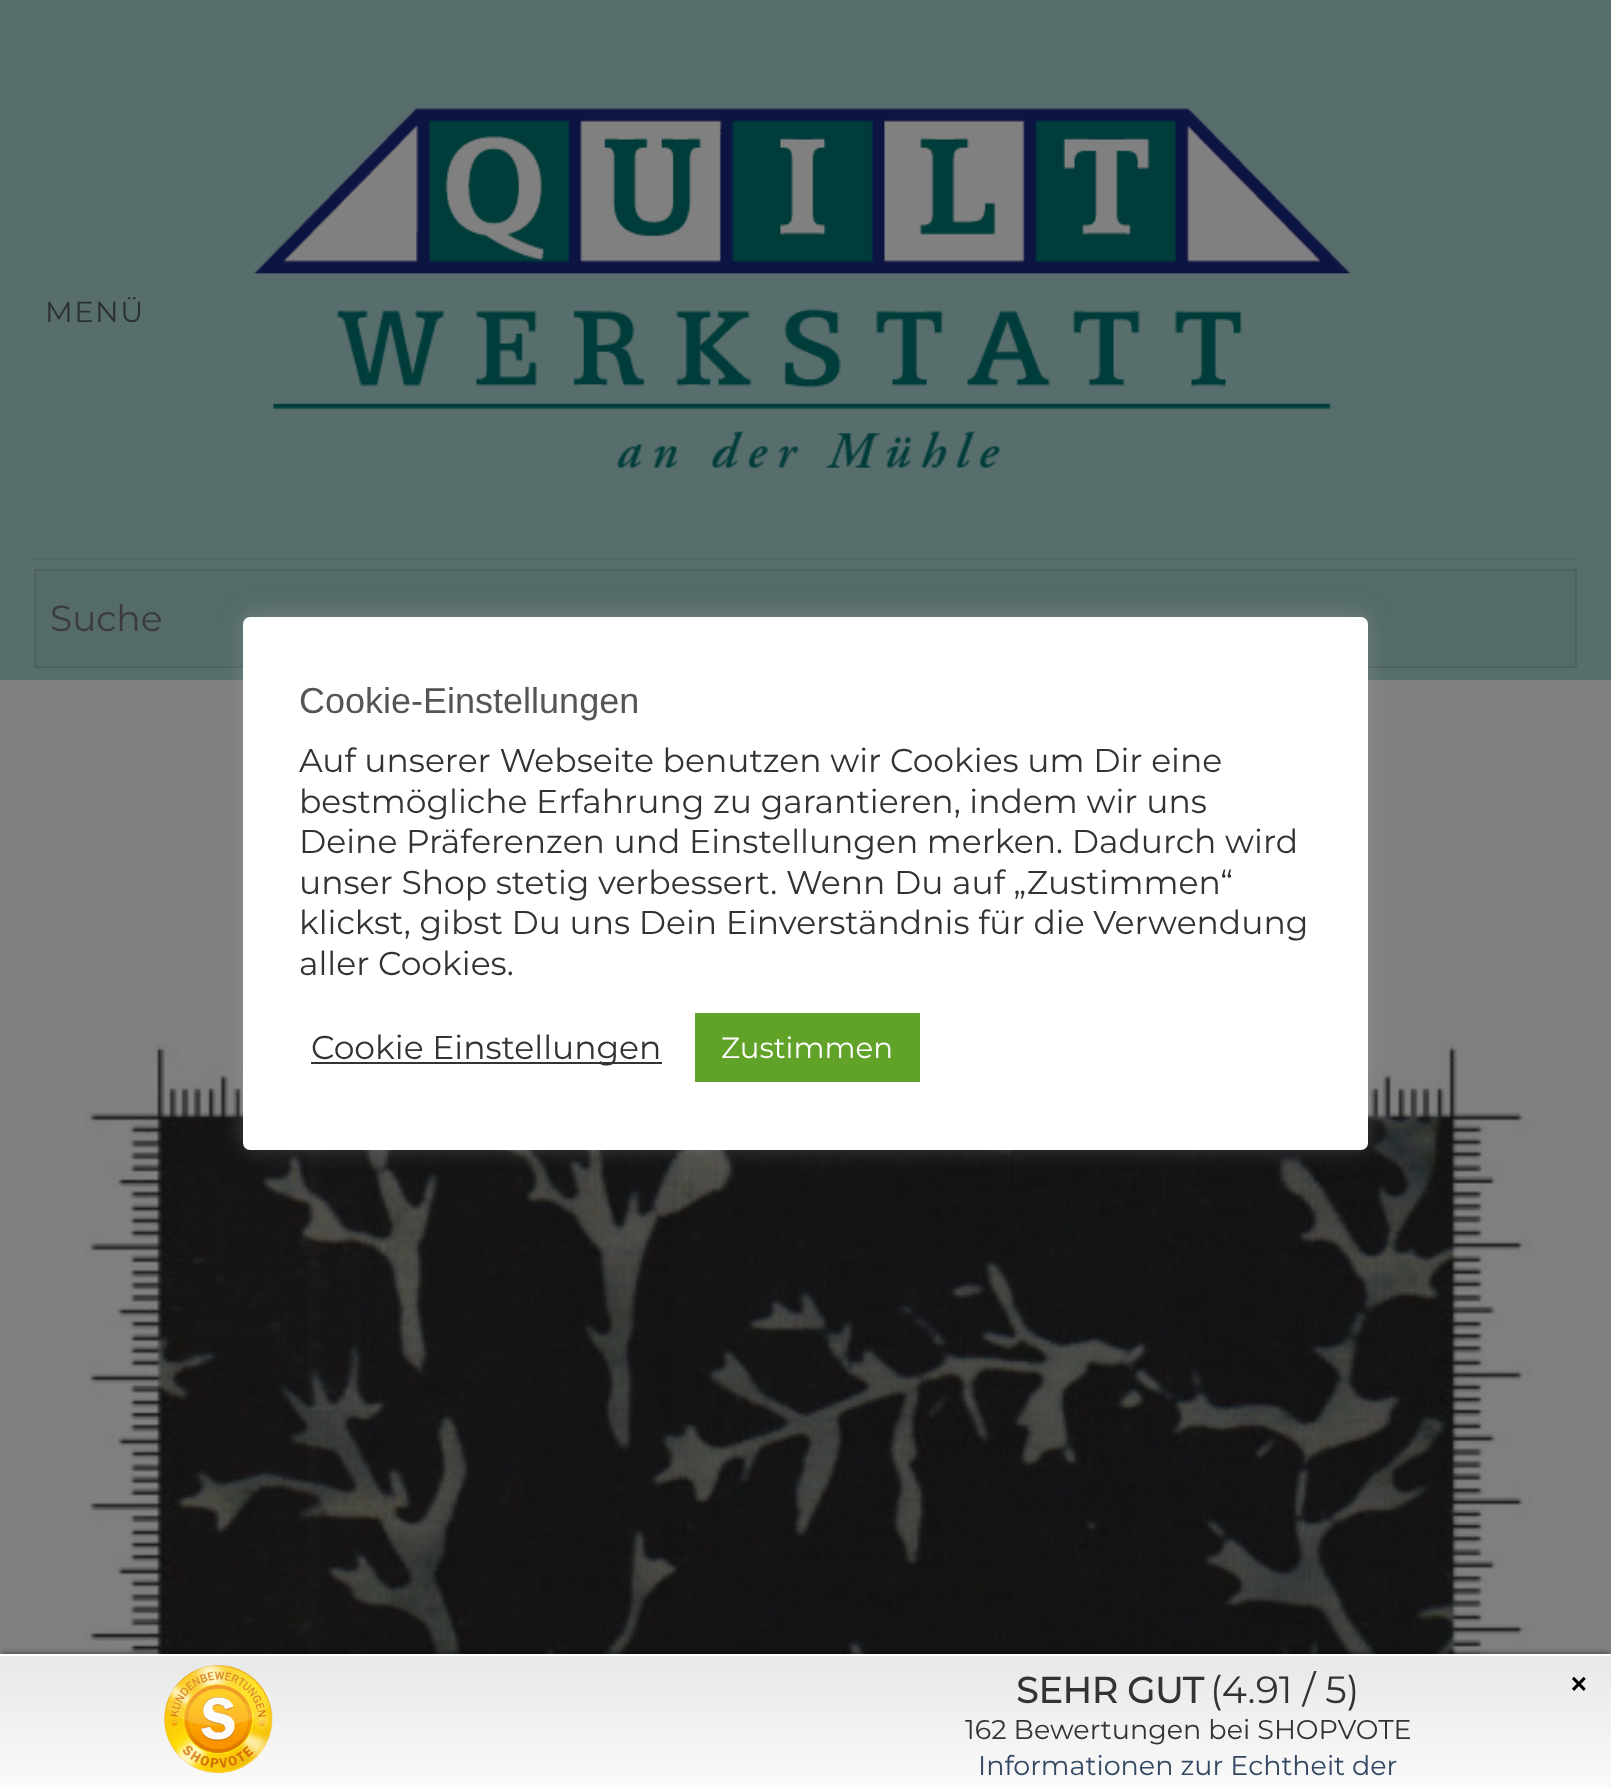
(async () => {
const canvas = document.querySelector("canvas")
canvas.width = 1611
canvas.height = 1787
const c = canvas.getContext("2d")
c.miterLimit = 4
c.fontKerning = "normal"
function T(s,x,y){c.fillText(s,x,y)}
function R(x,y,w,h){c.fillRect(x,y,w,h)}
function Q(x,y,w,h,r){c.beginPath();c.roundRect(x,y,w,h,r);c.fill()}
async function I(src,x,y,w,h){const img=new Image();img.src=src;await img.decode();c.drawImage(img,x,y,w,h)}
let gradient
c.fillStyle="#808080"
R(0,0,1611,1787)
c.fillStyle="#576e6d"
R(0,0,1611,680)
c.letterSpacing="1.5px"
c.font="100 29px Montserrat"
c.fillStyle="#2d3030"
T("MENÜ",45,322)
await I("1.png",253,108,1098,360)
c.fillStyle="#526766"
R(34,558,1543,2)
c.fillStyle="#546b6a"
c.beginPath()
c.rect(35,570,1541,97)
c.fill()
c.strokeStyle="#4c6160"
c.lineWidth=2
c.stroke()
c.letterSpacing="0px"
c.font="100 36px Montserrat"
c.fillStyle="#3b3b3b"
T("Suche",50,631)
await I("2.png",83,1042,1451,612)
c.fillStyle="#acabab4d"
c.filter="blur(11px)"
c.beginPath()
c.roundRect(243,614,1125,534,7)
c.fill()
c.filter="none"
c.fillStyle="#fff"
Q(243,617,1125,533,7)
c.font="36px Liberation Sans"
c.fillStyle="#555"
T("Cookie-Einstellungen",299,713)
c.font="100 33px Montserrat"
c.fillStyle="#333"
T("Auf unserer Webseite benutzen wir Cookies um Dir eine",299,772)
T("bestmögliche Erfahrung zu garantieren, indem wir uns",299,813)
T("Deine Präferenzen und Einstellungen merken. Dadurch wird",299,853)
T("unser Shop stetig verbessert. Wenn Du auf „Zustimmen“",299,894)
T("klickst, gibst Du uns Dein Einverständnis für die Verwendung",299,934)
T("aller Cookies.",299,975)
R(311,1062,351,2)
T("Cookie Einstellungen",311,1059)
c.fillStyle="#61a229"
R(695,1013,225,69)
c.font="100 29.25px Montserrat"
c.fillStyle="#fff"
T("Zustimmen",721,1058)
c.fillStyle="#00000059"
c.filter="blur(2px)"
c.beginPath()
c.rect(2,1652,1607,130)
c.fill()
c.filter="none"
gradient = c.createLinearGradient(806,1656,806,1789)
gradient.addColorStop(0,"#f0f0f0")
gradient.addColorStop(0,"#e8e8e8")
gradient.addColorStop(1,"#fafafa")
c.fillStyle = gradient
R(0,1656,1611,131)
c.fillStyle="#fff"
R(0,1654,1611,2)
await I("3.png",164,1665,109,108)
c.font="bold 36px Montserrat"
c.fillStyle="#333"
T("SEHR GUT",1016,1703)
c.font="100 38px Montserrat"
T("(4.91 / 5)",1210,1703)
c.font="100 27px Montserrat"
T("162 Bewertungen bei SHOPVOTE",965,1739)
c.fillStyle="#334862"
T("Informationen zur Echtheit der",978,1775)
c.font="bold 36px Montserrat"
c.fillStyle="#000"
T("×",1568,1697)
})()
